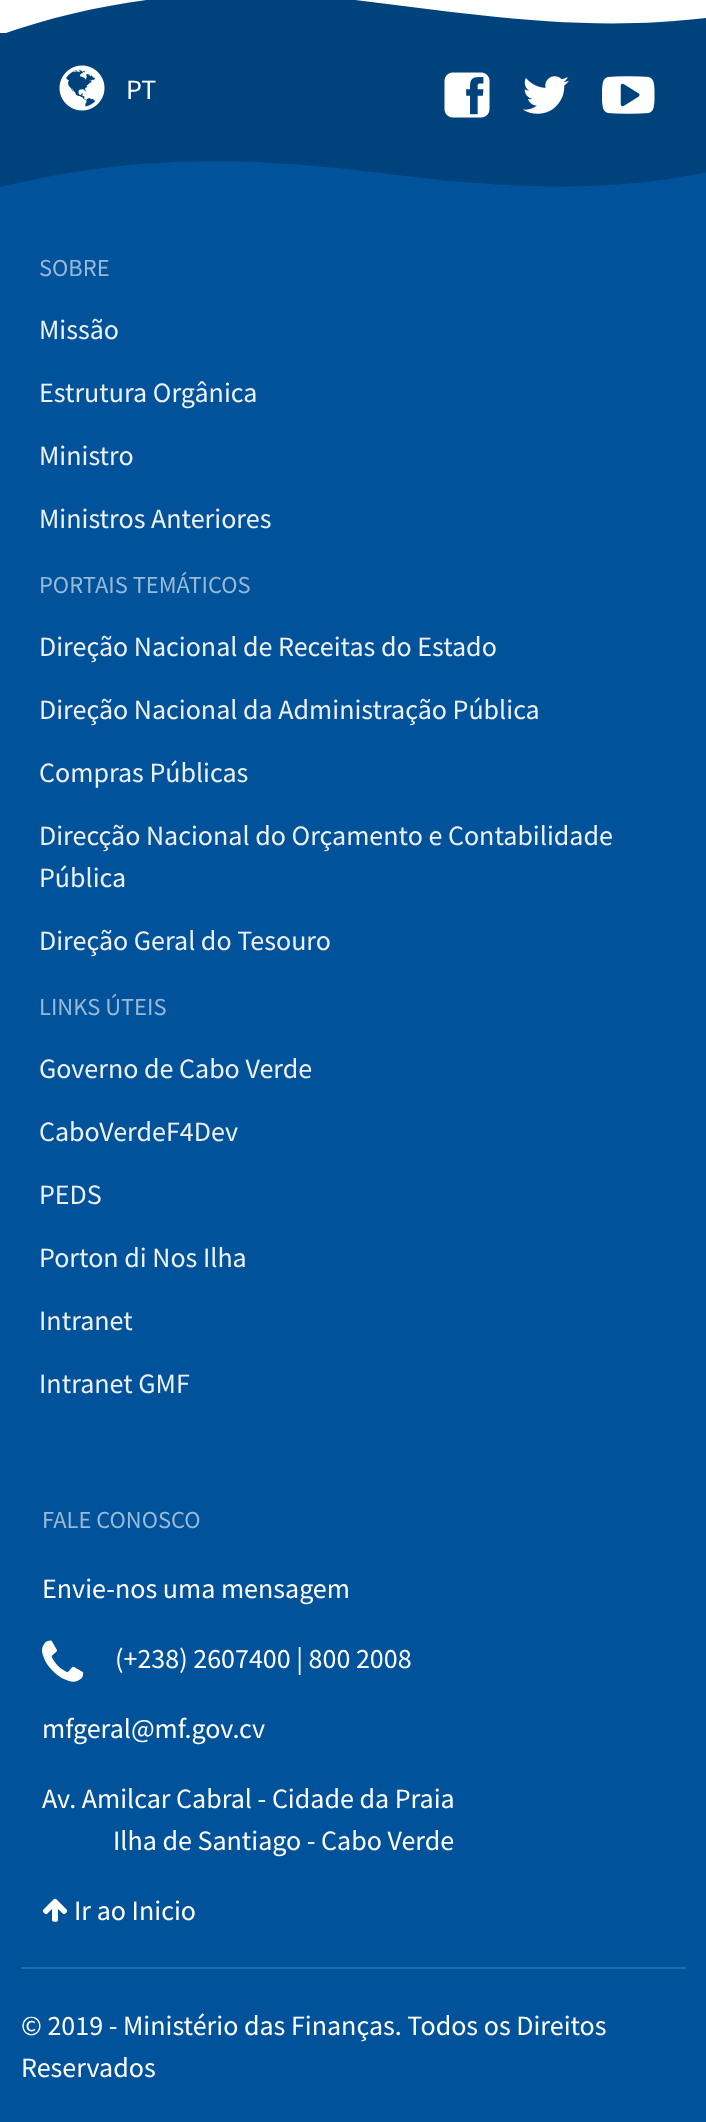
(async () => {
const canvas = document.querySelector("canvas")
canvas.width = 706
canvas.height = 2122
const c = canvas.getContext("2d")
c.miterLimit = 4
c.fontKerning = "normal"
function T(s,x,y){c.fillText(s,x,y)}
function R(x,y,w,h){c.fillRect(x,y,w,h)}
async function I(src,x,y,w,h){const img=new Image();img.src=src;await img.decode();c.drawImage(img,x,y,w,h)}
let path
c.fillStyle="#fff"
R(0,0,706,2122)
c.fillStyle="#00427c"
path = new Path2D("M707 35v-17c-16 2-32 3-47 4c-112 7-221-13-331-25c-110-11-224 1-329 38z")
c.fill(path)
R(0,33,706,121)
await I("1.png",59,65,46,46)
c.font="28px Source Sans Pro"
c.fillStyle="#fff"
T("PT",126,99)
await I("2.png",444,72,46,46)
await I("3.png",523,76,46,38)
await I("4.png",602,76,53,38)
c.fillStyle="#00529b"
R(0,161,706,1961)
c.fillStyle="#00427c"
path = new Path2D("M0 187c25-6 49-11 74-15c104-17 203-12 307 1c109 14 218 22 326-1v-18h-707z")
c.fill(path)
c.font="24.5px Source Sans Pro"
c.fillStyle="#99bad7"
T("SOBRE",39,276)
c.font="28px Source Sans Pro"
c.fillStyle="#eef1f4"
T("Missão",39,339)
T("Estrutura Orgânica",39,402)
T("Ministro",39,465)
T("Ministros Anteriores",39,528)
c.font="24.5px Source Sans Pro"
c.fillStyle="#99bad7"
T("PORTAIS TEMÁTICOS",39,593)
c.font="28px Source Sans Pro"
c.fillStyle="#eef1f4"
T("Direção Nacional de Receitas do Estado",39,656)
T("Direção Nacional da Administração Pública",39,719)
T("Compras Públicas",39,782)
T("Direcção Nacional do Orçamento e Contabilidade",39,845)
T("Pública",39,887)
T("Direção Geral do Tesouro",39,950)
c.font="24.5px Source Sans Pro"
c.fillStyle="#99bad7"
T("LINKS ÚTEIS",39,1015)
c.font="28px Source Sans Pro"
c.fillStyle="#eef1f4"
T("Governo de Cabo Verde",39,1078)
T("CaboVerdeF4Dev",39,1141)
T("PEDS",39,1204)
T("Porton di Nos Ilha",39,1267)
T("Intranet",39,1330)
T("Intranet GMF",39,1393)
c.font="24.5px Source Sans Pro"
c.fillStyle="#99bad7"
T("FALE CONOSCO",42,1528)
c.font="28px Source Sans Pro"
c.fillStyle="#fff"
T("Envie-nos uma mensagem",42,1598)
await I("5.png",42,1640,42,42)
T("(+238) 2607400 | 800 2008",115,1668)
T("mfgeral@mf.gov.cv",42,1738)
T("Av. Amilcar Cabral - Cidade da Praia",42,1808)
T("Ilha de Santiago - Cabo Verde",113,1850)
await I("6.png",42,1898,26,24)
T("Ir ao Inicio",74,1920)
c.fillStyle="#266caa"
R(21,1967,665,2)
c.fillStyle="#fff"
T("© 2019 - Ministério das Finanças. Todos os Direitos",21,2035)
T("Reservados",21,2077)
})()
